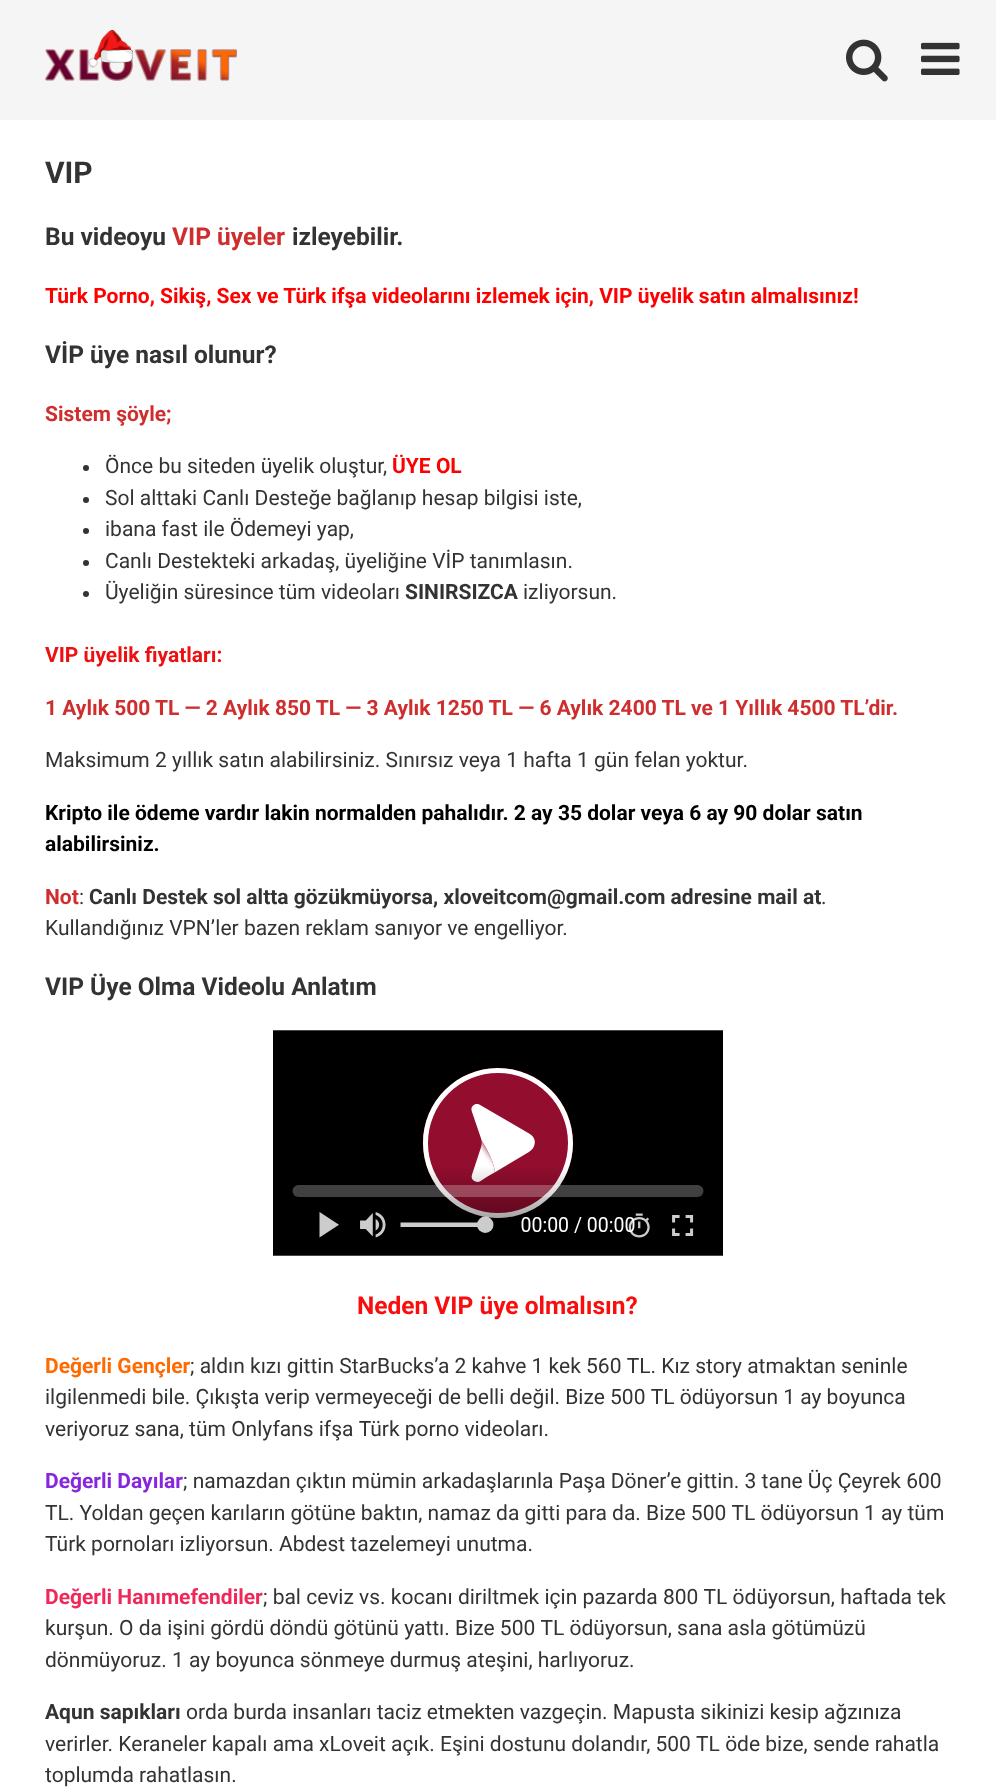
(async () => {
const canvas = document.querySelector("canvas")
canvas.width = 996
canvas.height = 1789
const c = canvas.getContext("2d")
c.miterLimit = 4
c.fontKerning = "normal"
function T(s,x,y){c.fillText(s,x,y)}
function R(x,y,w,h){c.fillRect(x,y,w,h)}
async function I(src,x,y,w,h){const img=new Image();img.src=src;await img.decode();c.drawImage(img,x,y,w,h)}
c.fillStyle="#f5f5f5"
R(0,0,996,1789)
await I("1.png",45,30,192,51)
await I("2.png",846,39,42,43)
await I("3.png",921,42,39,33)
c.fillStyle="#fff"
R(0,120,996,1669)
c.font="bold 30px Roboto"
c.fillStyle="#333"
T("VIP",45,183)
c.font="bold 24.5px Roboto"
T("Bu videoyu",45,245)
c.fillStyle="#cf2e2e"
T("VIP üyeler",172,245)
c.fillStyle="#333"
T("izleyebilir.",292,245)
c.font="bold 21px Roboto"
c.fillStyle="#f00"
T("Türk Porno, Sikiş, Sex ve Türk ifşa videolarını izlemek için, VIP üyelik satın almalısınız!",45,303)
c.font="bold 24.5px Roboto"
c.fillStyle="#333"
T("VİP üye nasıl olunur?",45,363)
c.font="bold 21px Roboto"
c.fillStyle="#cf2e2e"
T("Sistem şöyle;",45,421)
c.fillStyle="#333"
c.beginPath()
c.arc(86,468,3,0,7)
c.fill()
c.font="21px Roboto"
T("Önce bu siteden üyelik oluştur,",105,473)
c.font="bold 21px Roboto"
c.fillStyle="#f00"
T("ÜYE OL",392,473)
c.fillStyle="#333"
c.beginPath()
c.arc(86,500,3,0,7)
c.fill()
c.font="21px Roboto"
T("Sol alttaki Canlı Desteğe bağlanıp hesap bilgisi iste,",105,505)
c.beginPath()
c.arc(86,531,3,0,7)
c.fill()
T("ibana fast ile Ödemeyi yap,",105,536)
c.beginPath()
c.arc(86,563,3,0,7)
c.fill()
T("Canlı Destekteki arkadaş, üyeliğine VİP tanımlasın.",105,568)
c.beginPath()
c.arc(86,594,3,0,7)
c.fill()
T("Üyeliğin süresince tüm videoları",105,599)
c.font="bold 21px Roboto"
T("SINIRSIZCA",405,599)
c.font="21px Roboto"
T("izliyorsun.",523,599)
c.font="bold 21px Roboto"
c.fillStyle="#ec1010"
T("VIP üyelik fiyatları:",45,662)
c.fillStyle="#cf2e2e"
T("1 Aylık 500 TL — 2 Aylık 850 TL — 3 Aylık 1250 TL — 6 Aylık 2400 TL ve 1 Yıllık 4500 TL’dir.",45,715)
c.font="21px Roboto"
c.fillStyle="#333"
T("Maksimum 2 yıllık satın alabilirsiniz. Sınırsız veya 1 hafta 1 gün felan yoktur.",45,767)
c.font="bold 21px Roboto"
c.fillStyle="#000"
T("Kripto ile ödeme vardır lakin normalden pahalıdır. 2 ay 35 dolar veya 6 ay 90 dolar satın",45,820)
T("alabilirsiniz.",45,851)
c.fillStyle="#cf2e2e"
T("Not",45,904)
c.font="21px Roboto"
c.fillStyle="#333"
T(":",79,904)
c.font="bold 21px Roboto"
T("Canlı Destek sol altta gözükmüyorsa, xloveitcom@gmail.com adresine mail at",89,904)
c.font="21px Roboto"
T(".",821,904)
T("Kullandığınız VPN’ler bazen reklam sanıyor ve engelliyor.",45,935)
c.font="bold 24.5px Roboto"
T("VIP Üye Olma Videolu Anlatım",45,995)
await I("4.png",273,1030,450,226)
c.fillStyle="#f90d0d"
T("Neden VIP üye olmalısın?",357,1314)
c.font="bold 21px Roboto"
c.fillStyle="#ff6a00"
T("Değerli Gençler",45,1373)
c.font="21px Roboto"
c.fillStyle="#333"
T("; aldın kızı gittin StarBucks’a 2 kahve 1 kek 560 TL. Kız story atmaktan seninle",190,1373)
T("ilgilenmedi bile. Çıkışta verip vermeyeceği de belli değil. Bize 500 TL ödüyorsun 1 ay boyunca",45,1404)
T("veriyoruz sana, tüm Onlyfans ifşa Türk porno videoları.",45,1436)
c.font="bold 21px Roboto"
c.fillStyle="#8626df"
T("Değerli Dayılar",45,1488)
c.font="21px Roboto"
c.fillStyle="#333"
T("; namazdan çıktın mümin arkadaşlarınla Paşa Döner’e gittin. 3 tane Üç Çeyrek 600",183,1488)
T("TL. Yoldan geçen karıların götüne baktın, namaz da gitti para da. Bize 500 TL ödüyorsun 1 ay tüm",45,1520)
T("Türk pornoları izliyorsun. Abdest tazelemeyi unutma.",45,1551)
c.font="bold 21px Roboto"
c.fillStyle="#f0285a"
T("Değerli Hanımefendiler",45,1604)
c.font="21px Roboto"
c.fillStyle="#333"
T("; bal ceviz vs. kocanı diriltmek için pazarda 800 TL ödüyorsun, haftada tek",263,1604)
T("kurşun. O da işini gördü döndü götünü yattı. Bize 500 TL ödüyorsun, sana asla götümüzü",45,1635)
T("dönmüyoruz. 1 ay boyunca sönmeye durmuş ateşini, harlıyoruz.",45,1667)
c.font="bold 21px Roboto"
T("Aqun sapıkları",45,1719)
c.font="21px Roboto"
T("orda burda insanları taciz etmekten vazgeçin. Mapusta sikinizi kesip ağzınıza",186,1719)
T("verirler. Keraneler kapalı ama xLoveit açık. Eşini dostunu dolandır, 500 TL öde bize, sende rahatla",45,1751)
T("toplumda rahatlasın.",45,1782)
})()
